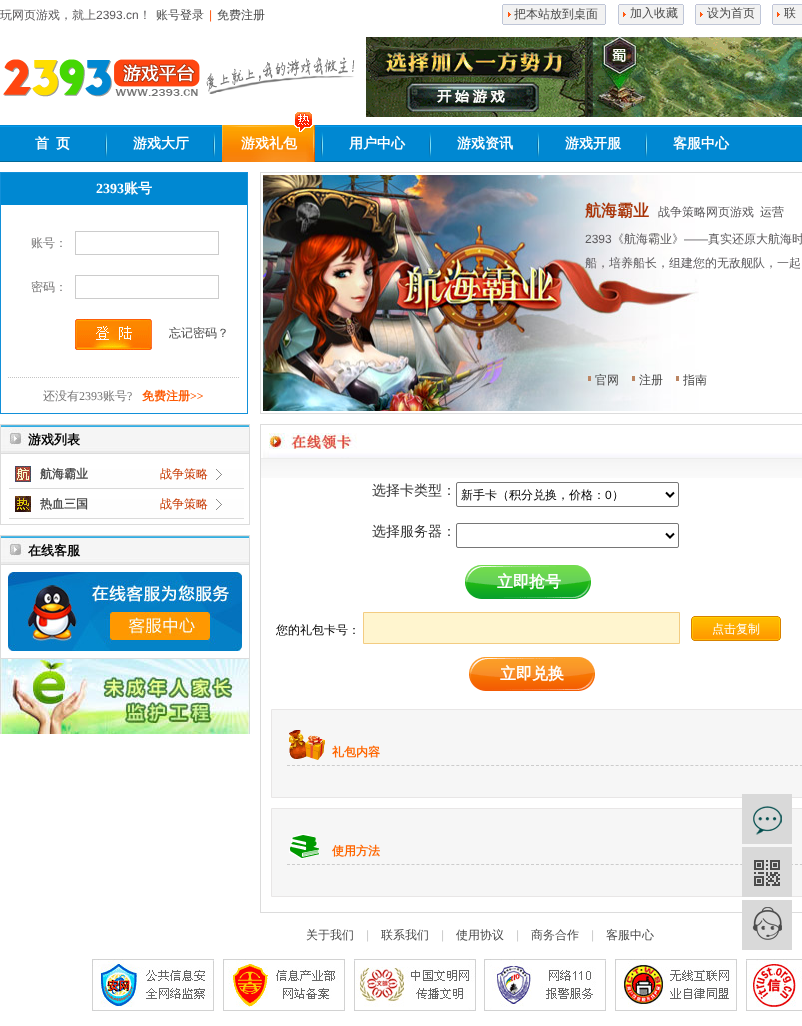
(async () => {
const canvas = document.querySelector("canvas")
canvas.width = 802
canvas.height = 1026
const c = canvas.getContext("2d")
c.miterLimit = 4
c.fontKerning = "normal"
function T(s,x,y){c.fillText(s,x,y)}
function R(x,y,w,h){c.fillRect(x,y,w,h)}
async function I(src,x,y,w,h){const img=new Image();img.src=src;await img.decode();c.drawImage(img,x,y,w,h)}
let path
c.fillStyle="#fff"
R(0,0,802,1026)
c.font="500 12px WenQuanYi Zen Hei"
c.fillStyle="#5c5a5d"
T("玩网页游戏，就上",0,19)
c.font="12px Liberation Sans"
T("2393.cn",96,19)
c.font="500 12px WenQuanYi Zen Hei"
T("！",139,19)
c.fillStyle="#4b4b4b"
T("账号登录",156,19)
c.font="12px Liberation Sans"
c.fillStyle="#ff5710"
T("|",209,19)
c.font="500 12px WenQuanYi Zen Hei"
c.fillStyle="#4b4b4b"
T("免费注册",217,19)
await I("1.png",502,4,104,21)
T("把本站放到桌面",514,18)
await I("2.png",618,4,66,21)
T("加入收藏",630,17)
await I("2.png",695,4,66,21)
T("设为首页",707,17)
await I("3.png",772,4,30,21)
T("联",784,17)
await I("4.png",0,125,802,37)
await I("5.png",3,57,352,40)
await I("6.png",366,37,436,80)
c.font="bold 14px WenQuanYi Zen Hei"
c.fillStyle="#fff"
T("首",35,148)
T("页",56,148)
await I("7.png",105,132,2,26)
T("游戏大厅",133,148)
await I("7.png",213,132,2,26)
await I("9.png",222,125,93,37)
await I("8.png",294,112,19,20)
T("游戏礼包",241,148)
await I("7.png",321,132,2,26)
T("用户中心",349,148)
await I("7.png",429,132,2,26)
T("游戏资讯",457,148)
await I("7.png",537,132,2,26)
T("游戏开服",565,148)
await I("7.png",645,132,2,26)
T("客服中心",673,148)
c.strokeStyle="#1290d9"
c.strokeRect(.5,172.5,247,241)
c.fillStyle="#0088d2"
R(1,173,246,32)
c.font="bold 14px Liberation Serif"
c.fillStyle="#fff"
T("2393",96,193)
c.font="bold 14px WenQuanYi Zen Hei"
T("账号",124,193)
c.font="500 12px WenQuanYi Zen Hei"
c.fillStyle="#747373"
T("账号：",31,247)
c.strokeStyle="#ccc"
c.strokeRect(75.5,231.5,143,23)
T("密码：",31,291)
c.strokeRect(75.5,275.5,143,23)
await I("10.png",75,319,77,31)
c.fillStyle="#4b4b4b"
T("忘记密码？",169,337)
path = new Path2D("M8 377.5h232")
c.strokeStyle="#c4c4c4"
c.setLineDash([1,1])
c.stroke(path)
c.fillStyle="#747373"
T("还没有",43,400)
c.font="12px Liberation Serif"
T("2393",79,400)
c.font="500 12px WenQuanYi Zen Hei"
T("账号",103,400)
c.font="12px Liberation Serif"
T("?",127,400)
c.font="bold 12px WenQuanYi Zen Hei"
c.fillStyle="#fd5902"
T("免费注册",142,400)
c.font="bold 12px Liberation Serif"
T(">>",190,400)
await I("11.png",1,425,248,28)
c.strokeStyle="#dcdcdc"
c.setLineDash([])
c.strokeRect(.5,424.5,249,29)
c.font="bold 13px WenQuanYi Zen Hei"
c.fillStyle="#000"
T("游戏列表",28,444)
c.fillStyle="#dcdcdc"
R(249,454,1,71)
R(0,524,250,1)
R(0,454,1,71)
await I("12.png",9,469,235,20)
await I("13.png",15,466,16,16)
c.font="bold 12px WenQuanYi Zen Hei"
c.fillStyle="#4b4b4b"
T("航海霸业",40,478)
c.font="500 12px WenQuanYi Zen Hei"
c.fillStyle="#c63800"
T("战争策略",160,478)
await I("12.png",9,499,235,20)
await I("14.png",15,496,16,16)
c.font="bold 12px WenQuanYi Zen Hei"
c.fillStyle="#4b4b4b"
T("热血三国",40,508)
c.font="500 12px WenQuanYi Zen Hei"
c.fillStyle="#c63800"
T("战争策略",160,508)
await I("11.png",1,536,248,28)
c.strokeRect(.5,535.5,249,29)
c.font="bold 13px WenQuanYi Zen Hei"
c.fillStyle="#000"
T("在线客服",28,555)
c.fillStyle="#dcdcdc"
R(249,565,1,94)
R(0,658,250,1)
R(0,565,1,94)
await I("15.png",8,572,234,79)
await I("16.png",0,659,250,75)
c.strokeRect(260.5,172.5,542,241)
await I("17.png",263,175,436,236)
c.font="bold 16px WenQuanYi Zen Hei"
c.fillStyle="#a9360a"
T("航海霸业",585,216)
c.font="500 12px WenQuanYi Zen Hei"
c.fillStyle="#5c5a5d"
T("战争策略网页游戏",658,216)
c.fillStyle="#4b4b4b"
T("运营",760,216)
c.font="12px Liberation Sans"
c.fillStyle="#5c5a5d"
T("2393",585,243)
c.font="500 12px WenQuanYi Zen Hei"
T("《航海霸业》",612,243)
c.font="12px Liberation Sans"
T("——",684,243)
c.font="500 12px WenQuanYi Zen Hei"
T("真实还原大航海时",708,243)
T("船，培养船长，组建您的无敌舰队，一起",585,267)
c.fillStyle="#bb8563"
R(588,376,3,5)
c.fillStyle="#4b4b4b"
T("官网",595,384)
c.fillStyle="#bb8563"
R(632,376,3,5)
c.fillStyle="#4b4b4b"
T("注册",639,384)
c.fillStyle="#bb8563"
R(676,376,3,5)
c.fillStyle="#4b4b4b"
T("指南",683,384)
await I("18.png",263,433,539,25)
c.strokeRect(260.5,424.5,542,488)
c.fillStyle="#ececec"
R(261,458,541,1)
await I("19.png",261,459,541,19)
c.font="500 14px WenQuanYi Zen Hei"
c.fillStyle="#333"
T("选择卡类型：",372,495)
c.beginPath()
c.roundRect(456.5,482.5,222,24,1.5)
c.strokeStyle="#767676"
c.stroke()
path = new Path2D("M666 492.5l4 4l4-4")
c.strokeStyle="#000"
c.lineWidth=2
c.stroke(path)
c.font="500 12px WenQuanYi Zen Hei"
c.fillStyle="#000"
T("新手卡（积分兑换，价格：",461,499)
c.font="12px Liberation Sans"
T("0",605,499)
c.font="500 12px WenQuanYi Zen Hei"
T("）",612,499)
c.font="500 14px WenQuanYi Zen Hei"
c.fillStyle="#333"
T("选择服务器：",372,536)
c.beginPath()
c.roundRect(456.5,523.5,222,24,1.5)
c.strokeStyle="#767676"
c.lineWidth=1
c.stroke()
path = new Path2D("M666 533.5l4 4l4-4")
c.strokeStyle="#000"
c.lineWidth=2
c.stroke(path)
await I("20.png",465,565,126,34)
c.font="bold 16px WenQuanYi Zen Hei"
c.fillStyle="#fff"
T("立即抢号",497,587)
c.font="500 12px WenQuanYi Zen Hei"
c.fillStyle="#000"
T("您的礼包卡号：",276,634)
c.fillStyle="#fff5cf"
c.beginPath()
c.rect(363.5,612.5,316,31)
c.fill()
c.strokeStyle="#f3cc82"
c.lineWidth=1
c.stroke()
await I("21.png",691,616,90,25)
c.fillStyle="#fff"
T("点击复制",712,633)
await I("22.png",469,657,126,34)
c.font="bold 16px WenQuanYi Zen Hei"
T("立即兑换",500,679)
c.fillStyle="#f6f6f6"
c.beginPath()
c.rect(271.5,709.5,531,88)
c.fill()
c.strokeStyle="#e8e6e6"
c.stroke()
await I("23.png",289,730,36,30)
path = new Path2D("M287 765.5h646")
c.strokeStyle="#ccc"
c.setLineDash([3,1.98])
c.stroke(path)
c.font="bold 12px WenQuanYi Zen Hei"
c.fillStyle="#f60"
T("礼包内容",332,756)
c.fillStyle="#f6f6f6"
c.beginPath()
c.rect(271.5,808.5,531,88)
c.fill()
c.strokeStyle="#e8e6e6"
c.setLineDash([])
c.stroke()
await I("24.png",289,834,31,25)
path = new Path2D("M287 864.5h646")
c.strokeStyle="#ccc"
c.setLineDash([3,1.98])
c.stroke(path)
c.fillStyle="#f60"
T("使用方法",332,855)
await I("25.png",742,794,50,50)
await I("26.png",742,847,50,50)
c.font="500 12px WenQuanYi Zen Hei"
c.fillStyle="#4b4b4b"
T("关于我们",306,939)
c.font="12px Liberation Sans"
c.fillStyle="#cbcbcb"
T("|",366,939)
c.font="500 12px WenQuanYi Zen Hei"
c.fillStyle="#4b4b4b"
T("联系我们",381,939)
c.font="12px Liberation Sans"
c.fillStyle="#cbcbcb"
T("|",441,939)
c.font="500 12px WenQuanYi Zen Hei"
c.fillStyle="#4b4b4b"
T("使用协议",456,939)
c.font="12px Liberation Sans"
c.fillStyle="#cbcbcb"
T("|",516,939)
c.font="500 12px WenQuanYi Zen Hei"
c.fillStyle="#4b4b4b"
T("商务合作",531,939)
c.font="12px Liberation Sans"
c.fillStyle="#cbcbcb"
T("|",591,939)
c.font="500 12px WenQuanYi Zen Hei"
c.fillStyle="#4b4b4b"
T("客服中心",606,939)
await I("27.png",92,959,710,52)
await I("28.png",742,900,50,50)
})()
